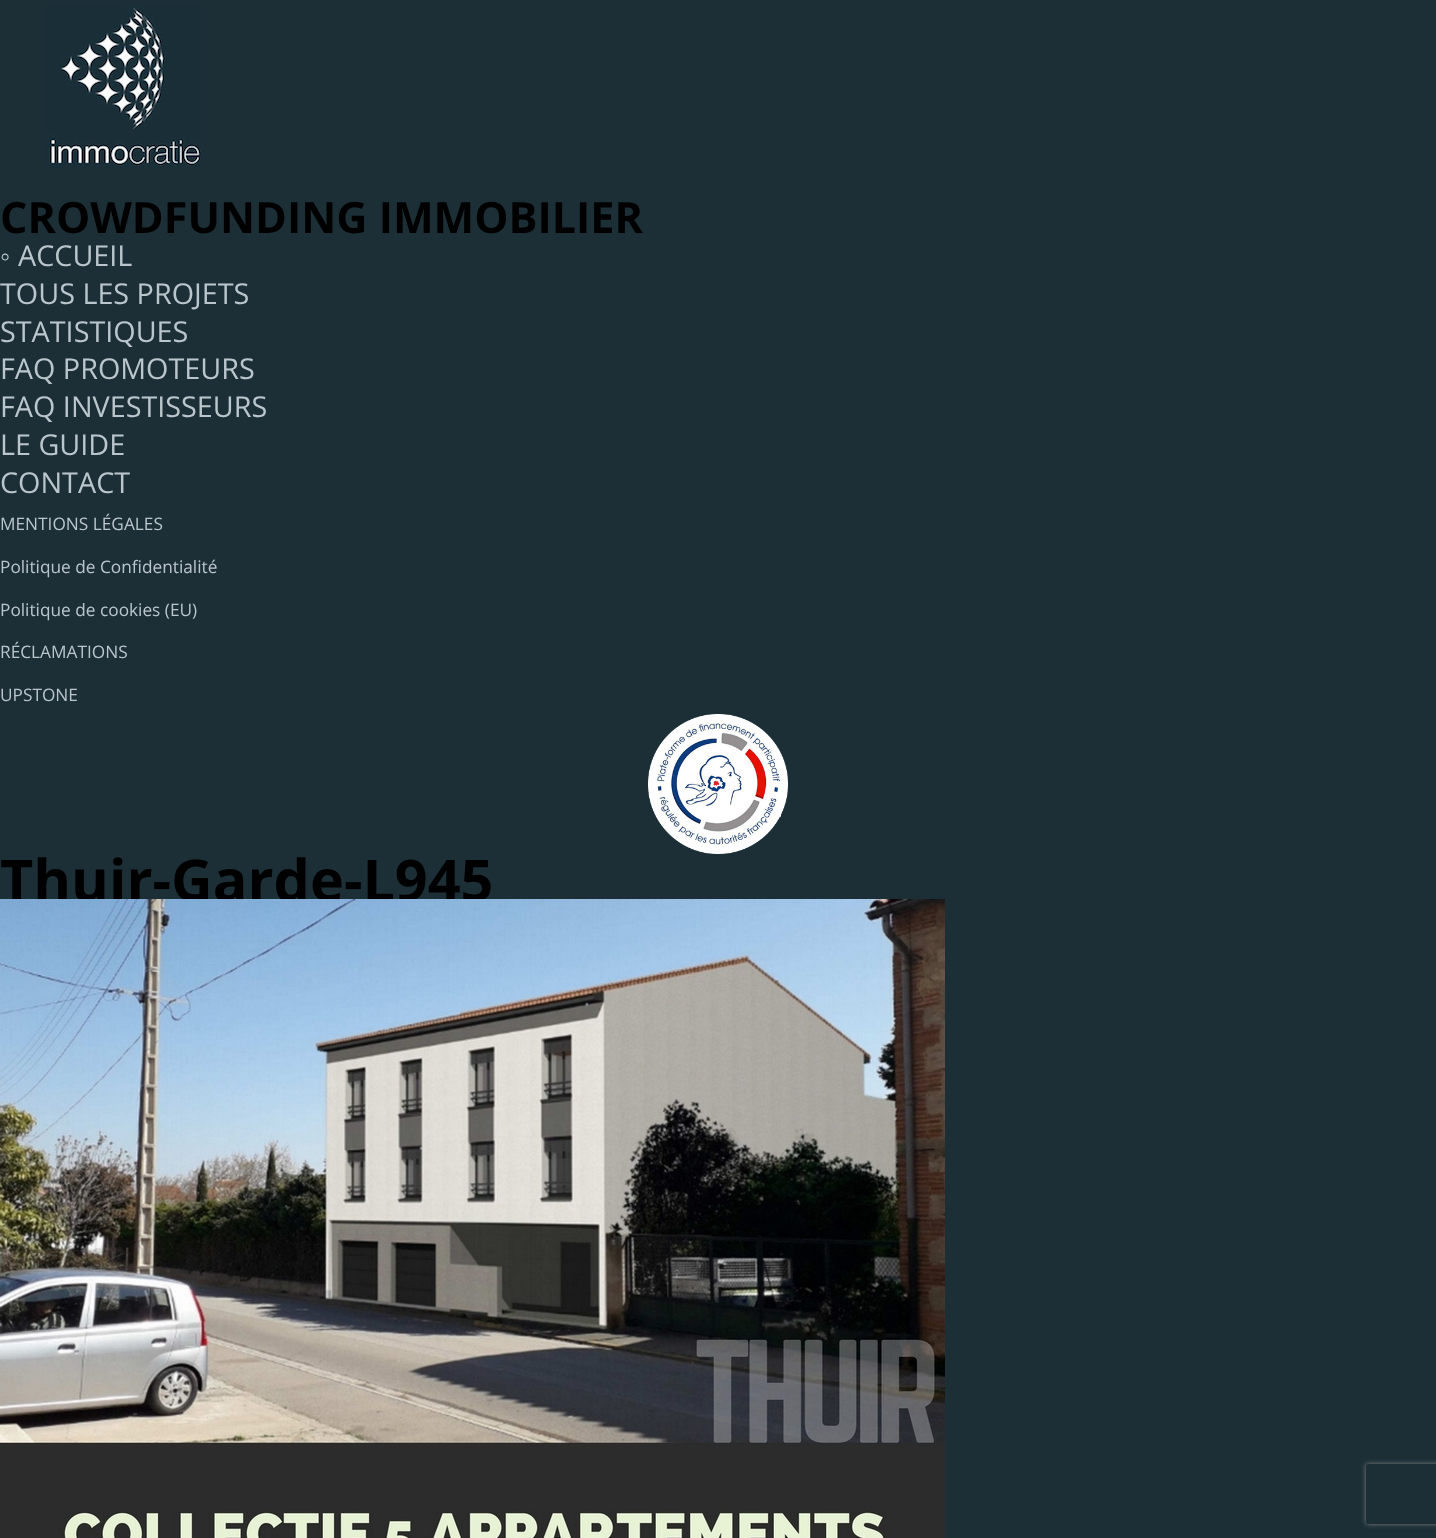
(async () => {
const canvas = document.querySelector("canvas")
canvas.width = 1436
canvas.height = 1538
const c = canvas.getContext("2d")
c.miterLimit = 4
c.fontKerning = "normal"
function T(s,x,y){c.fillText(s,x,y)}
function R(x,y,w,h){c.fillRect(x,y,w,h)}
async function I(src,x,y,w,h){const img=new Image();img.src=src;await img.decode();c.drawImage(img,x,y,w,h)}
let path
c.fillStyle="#1c2f37"
R(0,0,1436,1538)
await I("1.png",46,6,155,161)
c.font="bold 43.1px Open Sans"
c.fillStyle="#000"
T("CROWDFUNDING IMMOBILIER",0,233)
c.font="28.75px Liberation Sans"
c.fillStyle="#bac6cc"
T("◦",0,266)
c.font="28.75px Open Sans"
T("ACCUEIL",18,266)
T("TOUS LES PROJETS",0,304)
T("STATISTIQUES",0,342)
T("FAQ PROMOTEURS",0,379)
T("FAQ INVESTISSEURS",0,417)
T("LE GUIDE",0,455)
T("CONTACT",0,493)
c.font="17.25px Open Sans"
T("MENTIONS LÉGALES",0,530)
T("Politique de Confidentialité",0,573)
T("Politique de cookies (EU)",0,616)
T("RÉCLAMATIONS",0,658)
T("UPSTONE",0,701)
await I("2.png",648,714,140,140)
c.font="bold 57.5px Open Sans"
c.fillStyle="#000"
T("Thuir-Garde-L945",0,901)
await I("3.png",0,899,945,639)
c.save()
path = new Path2D("M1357 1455h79v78h-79zm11 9h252c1 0 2 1 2 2v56c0 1-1 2-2 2h-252c-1 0-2-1-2-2v-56c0-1 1-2 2-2z")
c.clip(path,"evenodd")
c.fillStyle="#808080"
c.filter="blur(2.5px)"
c.beginPath()
c.roundRect(1366,1464,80,60,2)
c.fill()
c.filter="none"
c.restore()
})()
